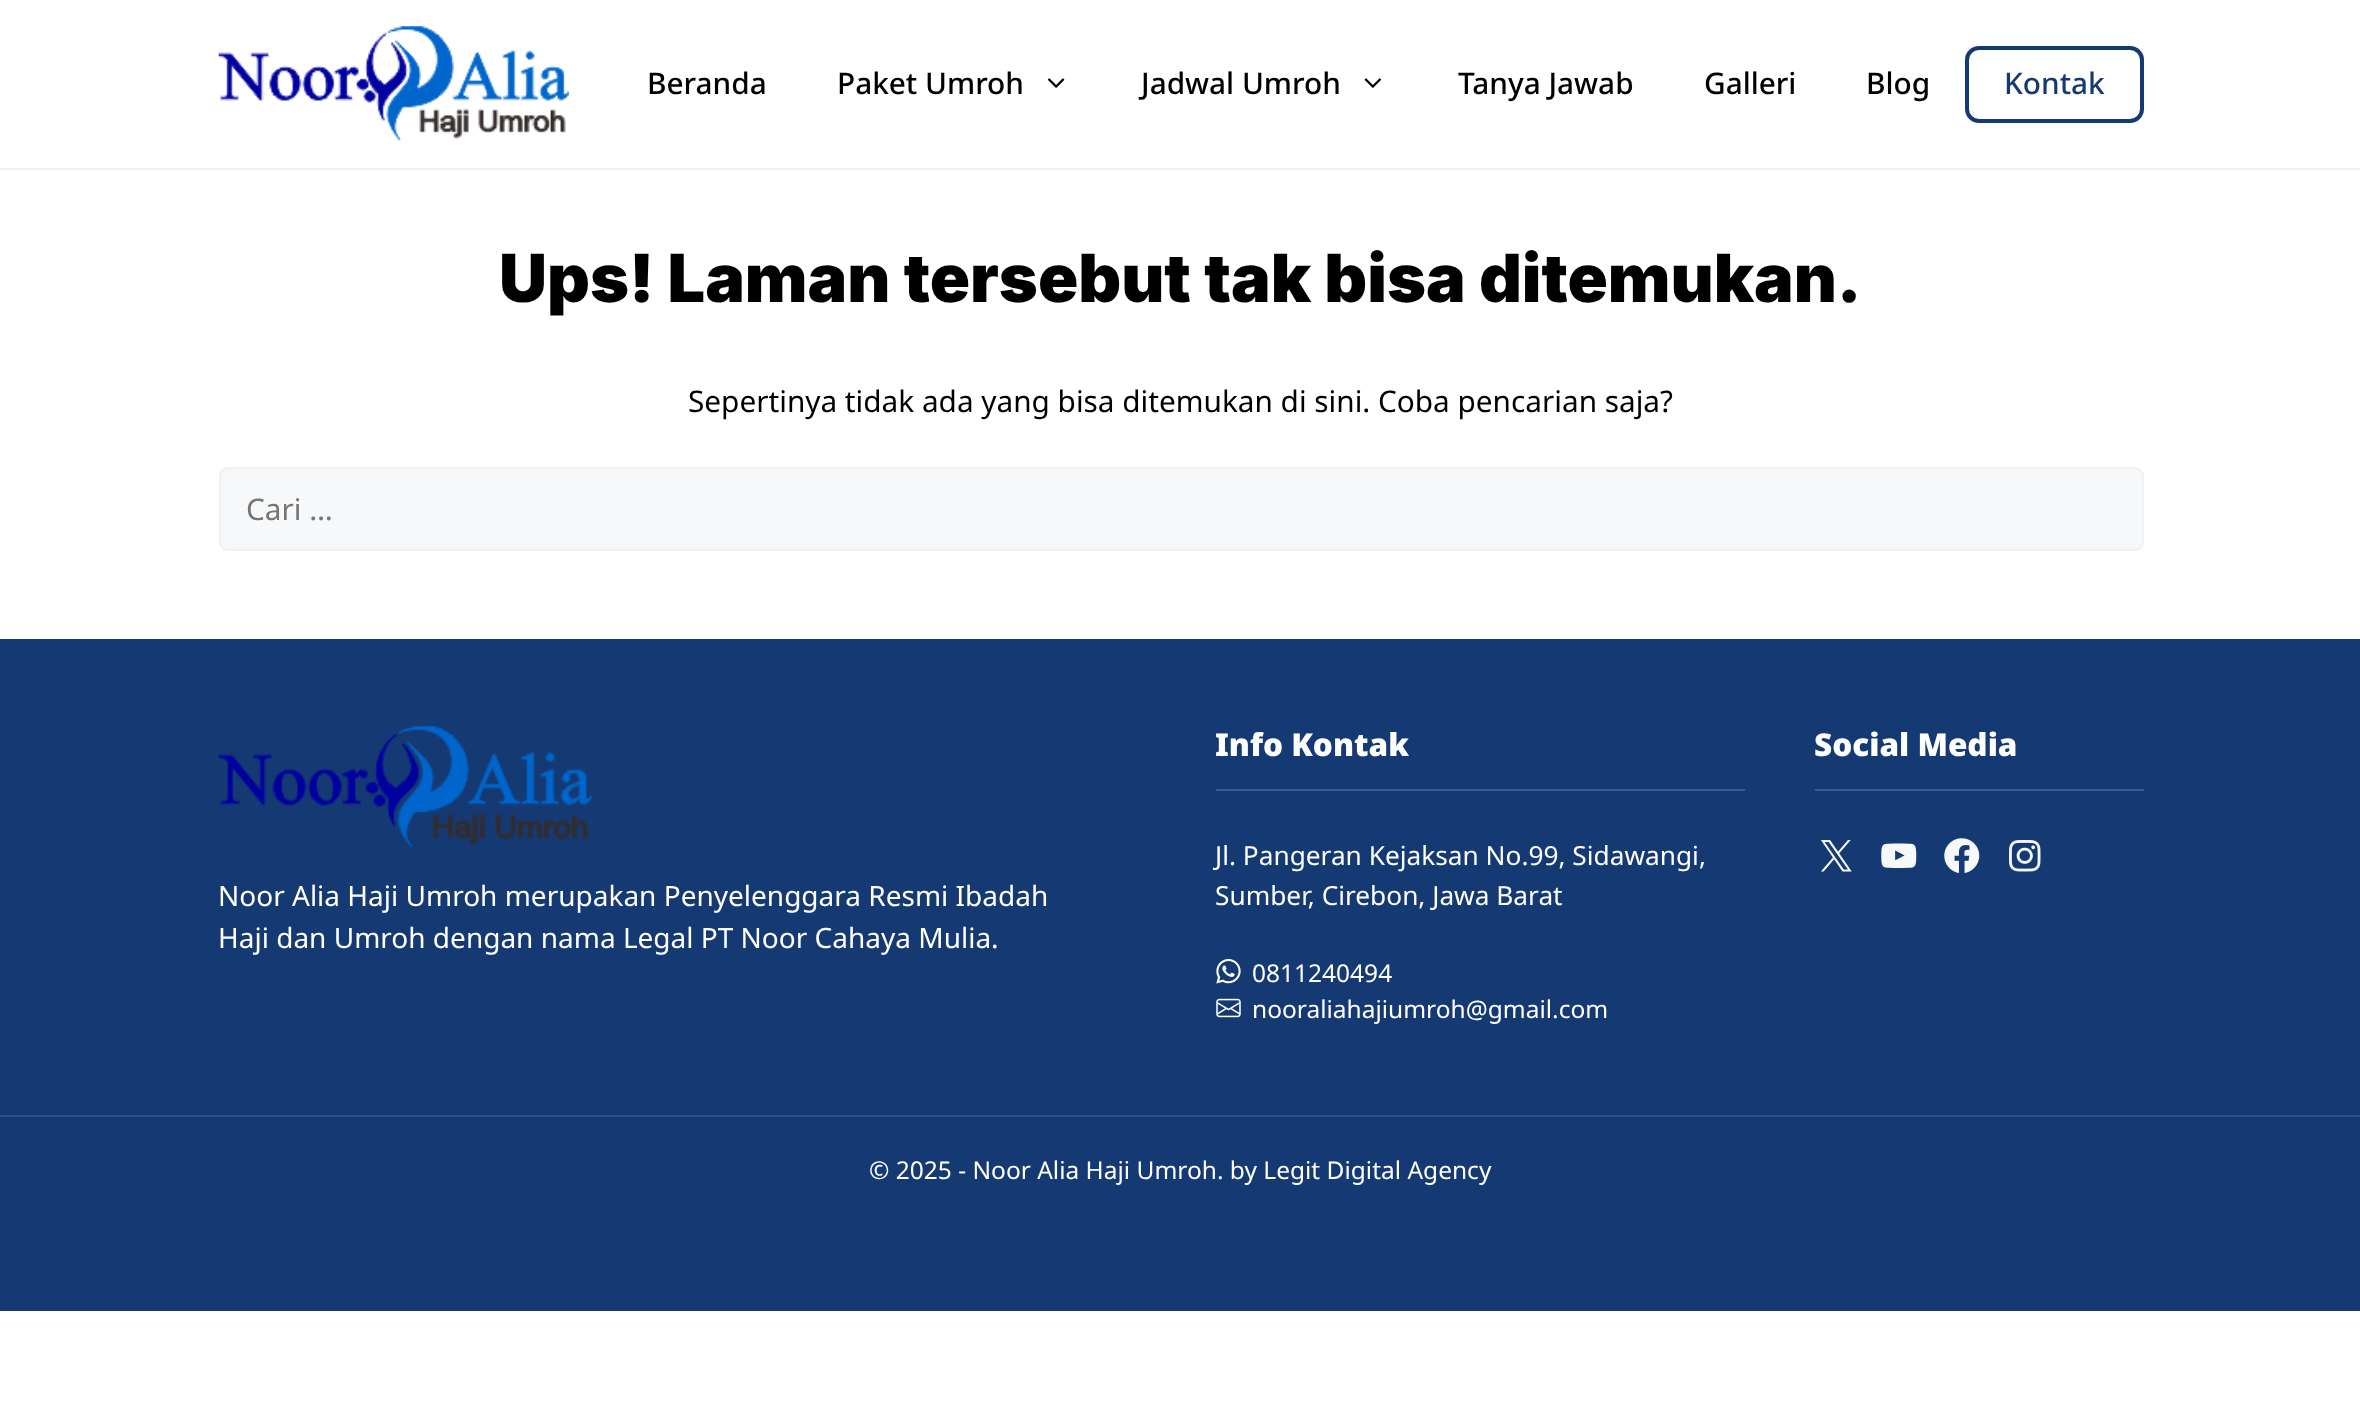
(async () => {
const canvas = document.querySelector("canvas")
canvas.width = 2360
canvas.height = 1420
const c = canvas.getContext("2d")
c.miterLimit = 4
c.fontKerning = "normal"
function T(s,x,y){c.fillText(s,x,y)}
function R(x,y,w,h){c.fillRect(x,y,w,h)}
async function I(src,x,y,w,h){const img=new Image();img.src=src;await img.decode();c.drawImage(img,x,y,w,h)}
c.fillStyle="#fff"
R(0,0,2360,1420)
c.fillStyle="#f1f1f1"
R(0,168,2360,2)
await I("1.png",218,26,351,115)
c.font="500 29.75px Noto Sans"
c.fillStyle="#000"
T("Beranda",647,94)
T("Paket Umroh",837,94)
await I("2.png",1047,78,18,10)
T("Jadwal Umroh",1141,94)
await I("3.png",1364,78,17,10)
T("Tanya Jawab",1458,94)
T("Galleri",1704,94)
T("Blog",1866,94)
c.beginPath()
c.roundRect(1967,48,175,73,12)
c.strokeStyle="#153a73"
c.lineWidth=4
c.stroke()
c.fillStyle="#153a73"
T("Kontak",2004,94)
c.font="900 66.5px Inter"
c.fillStyle="#000"
T("Ups! Laman tersebut tak bisa ditemukan.",499,302)
c.font="29.75px Noto Sans"
T("Sepertinya tidak ada yang bisa ditemukan di sini. Coba pencarian saja?",688,412)
c.fillStyle="#f7f8f9"
c.beginPath()
c.roundRect(220,468,1923,82,8)
c.fill()
c.strokeStyle="#f1f1f1"
c.lineWidth=2
c.stroke()
c.fillStyle="#757575"
T("Cari …",246,520)
c.fillStyle="#153a73"
R(0,639,2360,672)
c.fillStyle="#3d5b8b"
R(1216,789,529,2)
c.font="900 31.5px Noto Sans"
c.fillStyle="#fff"
T("Info Kontak",1215,756)
c.font="26.25px Noto Sans"
T("Jl. Pangeran Kejaksan No.99, Sidawangi,",1215,865)
T("Sumber, Cirebon, Jawa Barat",1215,905)
await I("4.png",1216,959,25,25)
c.font="24.5px Noto Sans"
T("0811240494",1252,982)
await I("5.png",1216,998,25,20)
T("nooraliahajiumroh@gmail.com",1252,1018)
c.fillStyle="#3d5b8b"
R(1815,789,329,2)
c.font="900 31.5px Noto Sans"
c.fillStyle="#fff"
T("Social Media",1814,756)
await I("6.png",1821,840,31,32)
await I("7.png",1881,843,36,26)
await I("8.png",1944,838,36,35)
await I("9.png",2009,840,32,32)
await I("10.png",218,726,374,122)
c.font="28px Noto Sans"
T("Noor Alia Haji Umroh merupakan Penyelenggara Resmi Ibadah",218,906)
T("Haji dan Umroh dengan nama Legal PT Noor Cahaya Mulia.",218,948)
c.fillStyle="#2c4e81"
R(0,1115,2360,2)
c.font="24.5px Noto Sans"
c.fillStyle="#fff"
T("© 2025 - Noor Alia Haji Umroh. by Legit Digital Agency",869,1179)
})()
